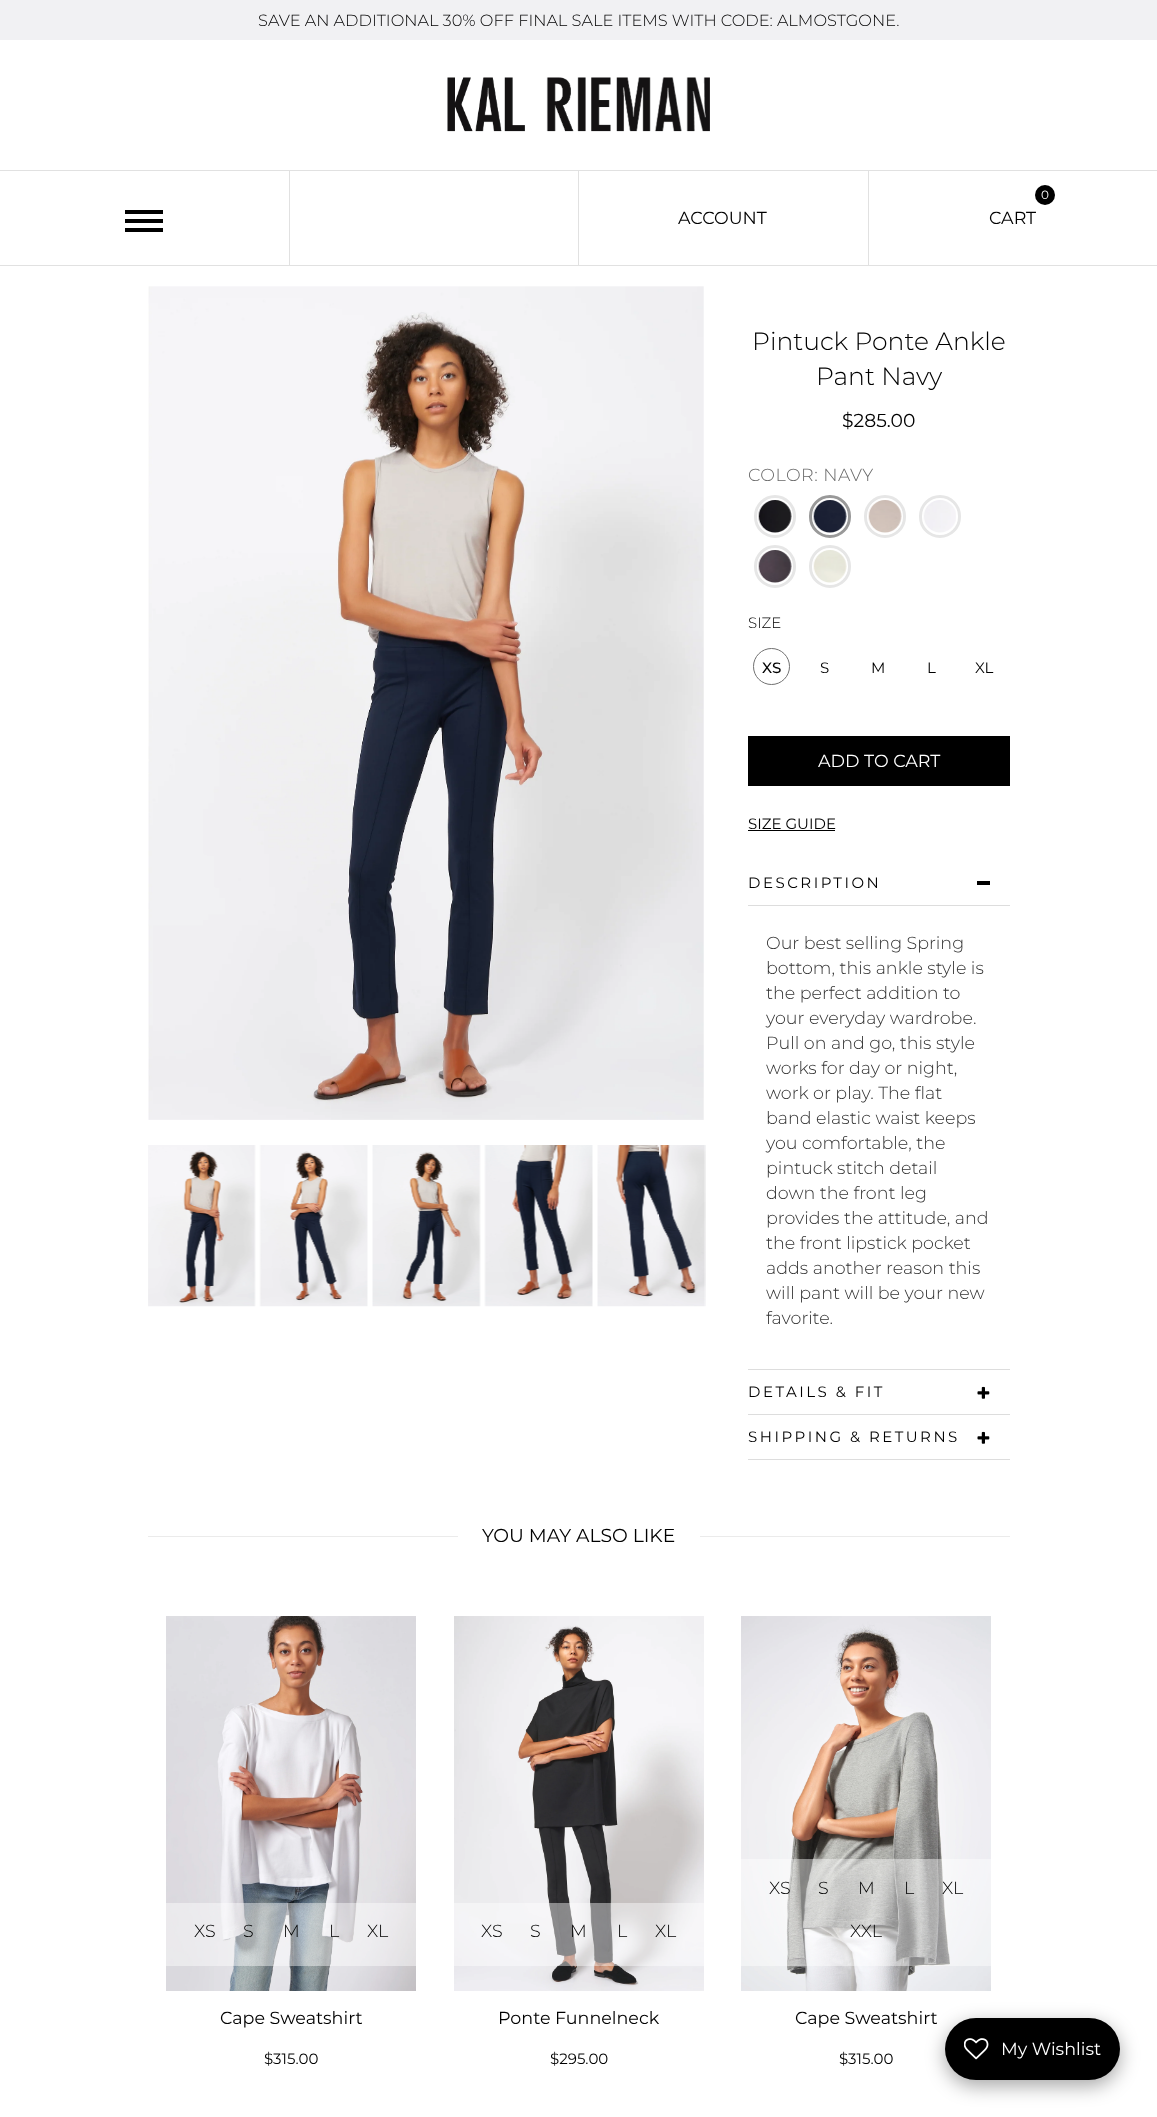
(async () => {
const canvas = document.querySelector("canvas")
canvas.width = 1157
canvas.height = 2117
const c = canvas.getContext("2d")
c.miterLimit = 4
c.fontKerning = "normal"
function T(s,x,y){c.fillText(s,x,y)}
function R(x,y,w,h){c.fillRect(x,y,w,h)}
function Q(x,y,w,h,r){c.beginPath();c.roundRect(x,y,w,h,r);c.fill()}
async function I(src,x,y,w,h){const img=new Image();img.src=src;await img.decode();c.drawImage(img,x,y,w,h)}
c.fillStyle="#fff"
R(0,0,1157,2117)
c.fillStyle="#f1f1f3"
R(0,0,1157,40)
c.font="300 16.25px Montserrat"
c.fillStyle="#000"
T("SAVE AN ADDITIONAL 30% OFF FINAL SALE ITEMS WITH CODE: ALMOSTGONE.",258,26)
await I("1.png",447,77,263,55)
c.fillStyle="#e1e1e1"
R(0,170,1157,1)
R(0,265,1157,1)
R(289,171,1,94)
c.fillStyle="#000"
R(125,210,38,4)
R(125,219,38,4)
R(125,228,38,4)
c.fillStyle="#e1e1e1"
R(578,171,1,94)
R(868,171,1,94)
c.font="17.5px Montserrat"
c.fillStyle="#000"
T("ACCOUNT",678,224)
c.beginPath()
c.arc(1045,195,10,0,7)
c.fill()
c.font="12px Montserrat"
c.fillStyle="#fff"
T("0",1041,199)
c.font="17.5px Montserrat"
c.fillStyle="#000"
T("CART",989,224)
await I("2.png",148,286,556,834)
await I("3.png",148,1145,108,162)
await I("4.png",259,1145,109,162)
await I("5.png",372,1145,109,162)
await I("6.png",484,1145,109,162)
await I("7.png",597,1145,109,162)
c.font="300 25px Montserrat"
T("Pintuck Ponte Ankle",752,350)
T("Pant Navy",816,385)
c.font="18.75px Montserrat"
T("$285.00",842,427)
c.letterSpacing="0.5px"
c.font="300 17.5px Montserrat"
c.fillStyle="#696969"
T("COLOR: NAVY",748,481)
c.beginPath()
c.roundRect(755.5,496.5,39,40,19.5)
c.strokeStyle="#e6e6e6"
c.lineWidth=3
c.stroke()
await I("8.png",758,500,34,33)
c.beginPath()
c.roundRect(810.5,496.5,39,40,19.5)
c.strokeStyle="#999"
c.stroke()
await I("9.png",813,500,34,33)
c.beginPath()
c.roundRect(865.5,496.5,39,40,19.5)
c.strokeStyle="#e6e6e6"
c.stroke()
await I("10.png",868,500,34,33)
c.beginPath()
c.roundRect(920.5,496.5,39,40,19.5)
c.stroke()
await I("11.png",923,500,33,33)
c.beginPath()
c.roundRect(755.5,546.5,39,40,19.5)
c.stroke()
await I("12.png",758,550,34,33)
c.beginPath()
c.roundRect(810.5,546.5,39,40,19.5)
c.stroke()
await I("13.png",813,550,34,33)
c.letterSpacing="0px"
c.font="300 15px Montserrat"
c.fillStyle="#000"
T("SIZE",748,628)
c.beginPath()
c.arc(771.5,666.5,18,0,7)
c.strokeStyle="#717171"
c.lineWidth=1
c.stroke()
c.font="500 15px Montserrat"
T("XS",762,673)
c.font="15px Montserrat"
T("S",820,673)
T("M",871,673)
T("L",927,673)
T("XL",975,673)
R(748,736,262,50)
c.font="17.5px Montserrat"
c.fillStyle="#fff"
T("ADD TO CART",818,767)
c.font="15px Montserrat"
c.fillStyle="#000"
T("SIZE GUIDE",748,829)
R(748,830,87,1)
c.fillStyle="#ddd"
R(748,905,262,1)
c.letterSpacing="2.5px"
c.fillStyle="#000"
T("DESCRIPTION",748,888)
R(977,881,13,4)
c.fillStyle="#ddd"
R(748,1369,262,1)
c.letterSpacing="0px"
c.font="300 17.5px Montserrat"
c.fillStyle="#333"
T("Our best selling Spring",766,949)
T("bottom, this ankle style is",766,974)
T("the perfect addition to",766,999)
T("your everyday wardrobe.",766,1024)
T("Pull on and go, this style",766,1049)
T("works for day or night,",766,1074)
T("work or play. The flat",766,1099)
T("band elastic waist keeps",766,1124)
T("you comfortable, the",766,1149)
T("pintuck stitch detail",766,1174)
T("down the front leg",766,1199)
T("provides the attitude, and",766,1224)
T("the front lipstick pocket",766,1249)
T("adds another reason this",766,1274)
T("will pant will be your new",766,1299)
T("favorite.",766,1324)
c.fillStyle="#ddd"
R(748,1414,262,1)
c.letterSpacing="2.5px"
c.font="15px Montserrat"
c.fillStyle="#000"
T("DETAILS & FIT",748,1397)
await I("14.png",977,1386,13,13)
c.fillStyle="#ddd"
R(748,1459,262,1)
c.fillStyle="#000"
T("SHIPPING & RETURNS",748,1442)
await I("14.png",977,1431,13,13)
c.fillStyle="#ebebeb"
R(148,1536,862,1)
c.fillStyle="#fff"
R(458,1536,242,1)
c.letterSpacing="0px"
c.font="18.75px Montserrat"
c.fillStyle="#000"
T("YOU MAY ALSO LIKE",482,1542)
await I("15.png",166,1616,250,375)
c.fillStyle="#ffffff70"
R(166,1903,250,63)
c.font="300 17.5px Montserrat"
c.fillStyle="#000"
T("XS",194,1937)
T("S",243,1937)
T("M",283,1937)
T("L",329,1937)
T("XL",367,1937)
c.font="17.5px Montserrat"
T("Cape Sweatshirt",220,2024)
c.font="15px Montserrat"
T("$315.00",264,2064)
await I("16.png",454,1616,250,375)
c.fillStyle="#ffffff70"
R(454,1903,250,63)
c.font="300 17.5px Montserrat"
c.fillStyle="#000"
T("XS",481,1937)
T("S",530,1937)
T("M",570,1937)
T("L",617,1937)
T("XL",655,1937)
c.font="17.5px Montserrat"
T("Ponte Funnelneck",498,2024)
c.font="15px Montserrat"
T("$295.00",550,2064)
await I("17.png",741,1616,250,375)
c.fillStyle="#ffffff70"
R(741,1859,250,107)
c.font="300 17.5px Montserrat"
c.fillStyle="#000"
T("XS",769,1894)
T("S",818,1894)
T("M",858,1894)
T("L",904,1894)
T("XL",942,1894)
T("XXL",850,1937)
c.font="17.5px Montserrat"
T("Cape Sweatshirt",795,2024)
c.font="15px Montserrat"
T("$315.00",839,2064)
c.fillStyle="#00000059"
c.filter="blur(9.5px)"
c.beginPath()
c.roundRect(945,2024,175,62,31)
c.fill()
c.filter="none"
c.fillStyle="#000"
Q(945,2018,175,62,31)
await I("18.png",964,2038,25,22)
c.font="17.5px Montserrat"
c.fillStyle="#fff"
T("My Wishlist",1001,2055)
})()
